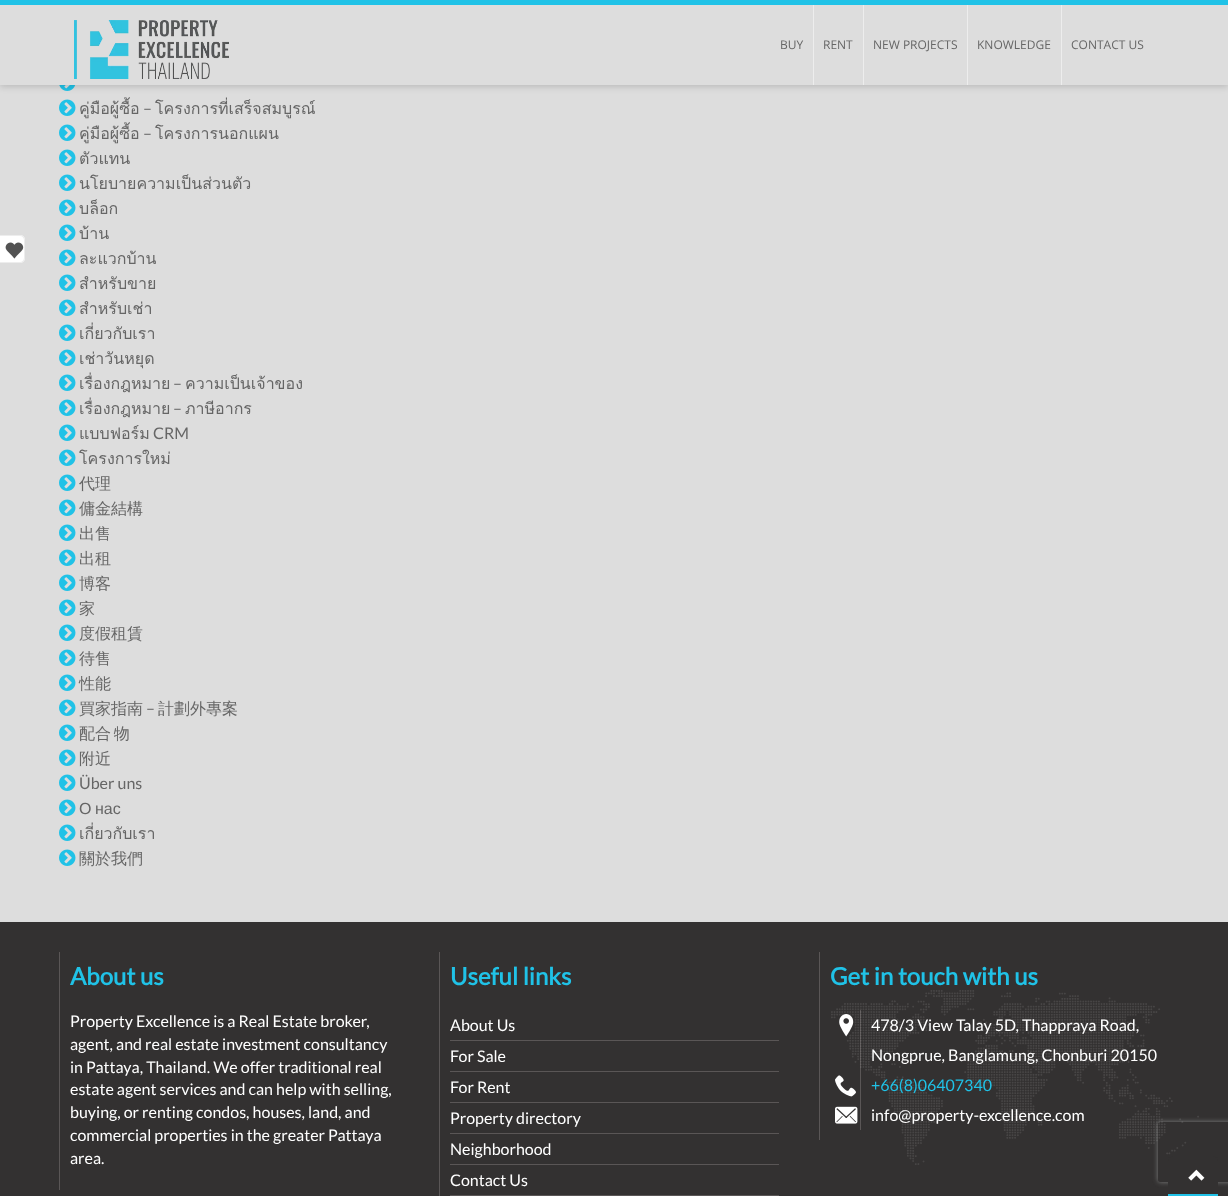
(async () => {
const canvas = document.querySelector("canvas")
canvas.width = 1228
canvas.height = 1196
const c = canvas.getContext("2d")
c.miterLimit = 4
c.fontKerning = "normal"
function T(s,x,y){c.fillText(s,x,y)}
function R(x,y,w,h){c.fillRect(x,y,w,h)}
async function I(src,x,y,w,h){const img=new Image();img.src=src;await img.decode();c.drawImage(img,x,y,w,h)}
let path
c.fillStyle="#ddd"
R(0,0,1228,1196)
await I("3.png",59,85,17,6)
c.fillStyle="#00000026"
c.filter="blur(3px)"
c.beginPath()
c.rect(0,2,1228,85)
c.fill()
c.filter="none"
c.fillStyle="#ddd"
R(0,5,1228,80)
c.fillStyle="#20c2e7"
R(0,0,1228,5)
await I("1.png",74,20,155,59)
c.font="12px Open Sans"
c.fillStyle="#666"
T("BUY",780,49)
c.fillStyle="#ededed"
R(813,5,1,80)
c.fillStyle="#666"
T("RENT",823,49)
c.fillStyle="#ededed"
R(863,5,1,80)
c.fillStyle="#666"
T("NEW PROJECTS",873,49)
c.fillStyle="#ededed"
R(967,5,1,80)
c.fillStyle="#666"
T("KNOWLEDGE",977,49)
c.fillStyle="#ededed"
R(1061,5,1,80)
c.fillStyle="#666"
T("CONTACT US",1071,49)
c.fillStyle="#fff"
c.beginPath()
c.roundRect(0,235,25,28,[0,5,5,0])
c.fill()
c.fillStyle="#ededed"
path = new Path2D("M0 235h20c3 0 5 2 5 5v18c0 3-2 5-5 5h-20zm0 1h20c2 0 4 2 4 4v18c0 2-2 4-4 4h-20z")
c.fill(path,"evenodd")
await I("2.png",5,242,19,17)
c.font="16px Loma"
c.fillStyle="#666"
T("คู่มือผู้ซื้อ",79,114)
await I("4.png",59,99,17,17)
c.font="16px Lato"
T("–",143,114)
c.font="16px Loma"
T("โครงการที่เสร็จสมบูรณ์",155,114)
T("คู่มือผู้ซื้อ",79,139)
await I("4.png",59,124,17,17)
c.font="16px Lato"
T("–",143,139)
c.font="16px Loma"
T("โครงการนอกแผน",155,139)
T("ตัวแทน",79,164)
await I("5.png",59,149,17,17)
await I("6.png",59,174,17,17)
T("นโยบายความเป็นส่วนตัว",79,189)
await I("6.png",59,199,17,17)
T("บล็อก",79,214)
T("บ้าน",79,239)
await I("7.png",59,224,17,17)
await I("6.png",59,249,17,17)
T("ละแวกบ้าน",79,264)
T("สำหรับขาย",79,289)
await I("8.png",59,274,17,17)
T("สำหรับเช่า",79,314)
await I("8.png",59,299,17,17)
T("เกี่ยวกับเรา",79,339)
await I("9.png",59,324,17,17)
await I("6.png",59,349,17,17)
T("เช่าวันหยุด",79,364)
T("เรื่องกฎหมาย",79,389)
await I("10.png",59,374,17,17)
c.font="16px Lato"
T("–",173,389)
c.font="16px Loma"
T("ความเป็นเจ้าของ",185,389)
T("เรื่องกฎหมาย",79,414)
await I("10.png",59,399,17,17)
c.font="16px Lato"
T("–",173,414)
c.font="16px Loma"
T("ภาษีอากร",185,414)
await I("6.png",59,424,17,17)
T("แบบฟอร์ม",79,439)
c.font="16px Lato"
T("CRM",153,439)
await I("6.png",59,449,17,17)
c.font="16px Loma"
T("โครงการใหม่",79,464)
await I("6.png",59,474,17,17)
c.font="500 16px WenQuanYi Zen Hei"
T("代理",79,489)
await I("6.png",59,499,17,17)
T("傭金結構",79,514)
await I("6.png",59,524,17,17)
T("出售",79,539)
await I("6.png",59,549,17,17)
T("出租",79,564)
await I("6.png",59,574,17,17)
T("博客",79,589)
await I("6.png",59,599,17,17)
T("家",79,614)
await I("6.png",59,624,17,17)
T("度假租賃",79,639)
await I("6.png",59,649,17,17)
T("待售",79,664)
await I("6.png",59,674,17,17)
T("性能",79,689)
await I("6.png",59,699,17,17)
T("買家指南",79,714)
c.font="16px Lato"
T("–",146,714)
c.font="500 16px WenQuanYi Zen Hei"
T("計劃外專案",158,714)
await I("6.png",59,724,17,17)
c.wordSpacing="-2px"
T("配合 物",79,739)
await I("6.png",59,749,17,17)
c.wordSpacing="0px"
T("附近",79,764)
await I("6.png",59,774,17,17)
c.font="16px Lato"
T("Über uns",79,789)
await I("6.png",59,799,17,17)
c.wordSpacing="-1px"
c.font="16px Liberation Sans"
T("О нас",79,814)
c.wordSpacing="0px"
c.font="16px Loma"
T("เกี่ยวกับเรา",79,839)
await I("9.png",59,824,17,17)
await I("6.png",59,849,17,17)
c.font="500 16px WenQuanYi Zen Hei"
T("關於我們",79,864)
c.fillStyle="#333131"
R(0,922,1228,274)
c.fillStyle="#5a5656"
R(59,952,1,238)
c.font="bold 24px Lato"
c.fillStyle="#20c2e7"
T("About us",70,985)
c.font="16px Lato"
c.fillStyle="#fff"
T("Property Excellence is a Real Estate broker,",70,1027)
T("agent, and real estate investment consultancy",70,1050)
T("in Pattaya, Thailand. We offer traditional real",70,1073)
T("estate agent services and can help with selling,",70,1095)
T("buying, or renting condos, houses, land, and",70,1118)
T("commercial properties in the greater Pattaya",70,1141)
T("area.",70,1164)
c.fillStyle="#5a5656"
R(439,952,1,244)
c.font="bold 24px Lato"
c.fillStyle="#20c2e7"
T("Useful links",450,985)
c.fillStyle="#5a5656"
R(450,1040,329,1)
c.font="16px Lato"
c.fillStyle="#fff"
T("About Us",450,1031)
c.fillStyle="#5a5656"
R(450,1071,329,1)
c.fillStyle="#fff"
T("For Sale",450,1062)
c.fillStyle="#5a5656"
R(450,1102,329,1)
c.fillStyle="#fff"
T("For Rent",450,1093)
c.fillStyle="#5a5656"
R(450,1133,329,1)
c.fillStyle="#fff"
T("Property directory",450,1124)
c.fillStyle="#5a5656"
R(450,1164,329,1)
c.fillStyle="#fff"
T("Neighborhood",450,1155)
c.fillStyle="#5a5656"
R(450,1195,329,1)
c.fillStyle="#fff"
T("Contact Us",450,1186)
c.fillStyle="#5a5656"
R(819,952,1,188)
c.font="bold 24px Lato"
c.fillStyle="#20c2e7"
T("Get in touch with us",830,985)
c.fillStyle="#5a5656"
R(860,1010,1,120)
c.save()
path = new Path2D("M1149 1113h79v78h-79zm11 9h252c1 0 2 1 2 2v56c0 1-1 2-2 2h-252c-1 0-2-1-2-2v-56c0-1 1-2 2-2z")
c.clip(path,"evenodd")
c.fillStyle="#808080"
c.filter="blur(2.5px)"
c.beginPath()
c.roundRect(1158,1122,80,60,2)
c.fill()
c.filter="none"
c.restore()
await I("11.png",831,990,368,175)
await I("12.png",839,1014,15,23)
c.font="16px Lato"
c.fillStyle="#fff"
T("478/3 View Talay 5D, Thappraya Road,",871,1031)
T("Nongprue, Banglamung, Chonburi 20150",871,1061)
await I("13.png",835,1075,21,22)
c.fillStyle="#20c2e7"
T("+66(8)06407340",871,1091)
await I("14.png",835,1106,23,18)
c.fillStyle="#fff"
T("info@property-excellence.com",871,1121)
c.fillStyle="#333131"
c.beginPath()
c.roundRect(1168,1156,50,40,[5,5,0,0])
c.fill()
c.fillStyle="#20c2e7"
R(1168,1194,50,2)
await I("15.png",1188,1169,17,12)
})()
